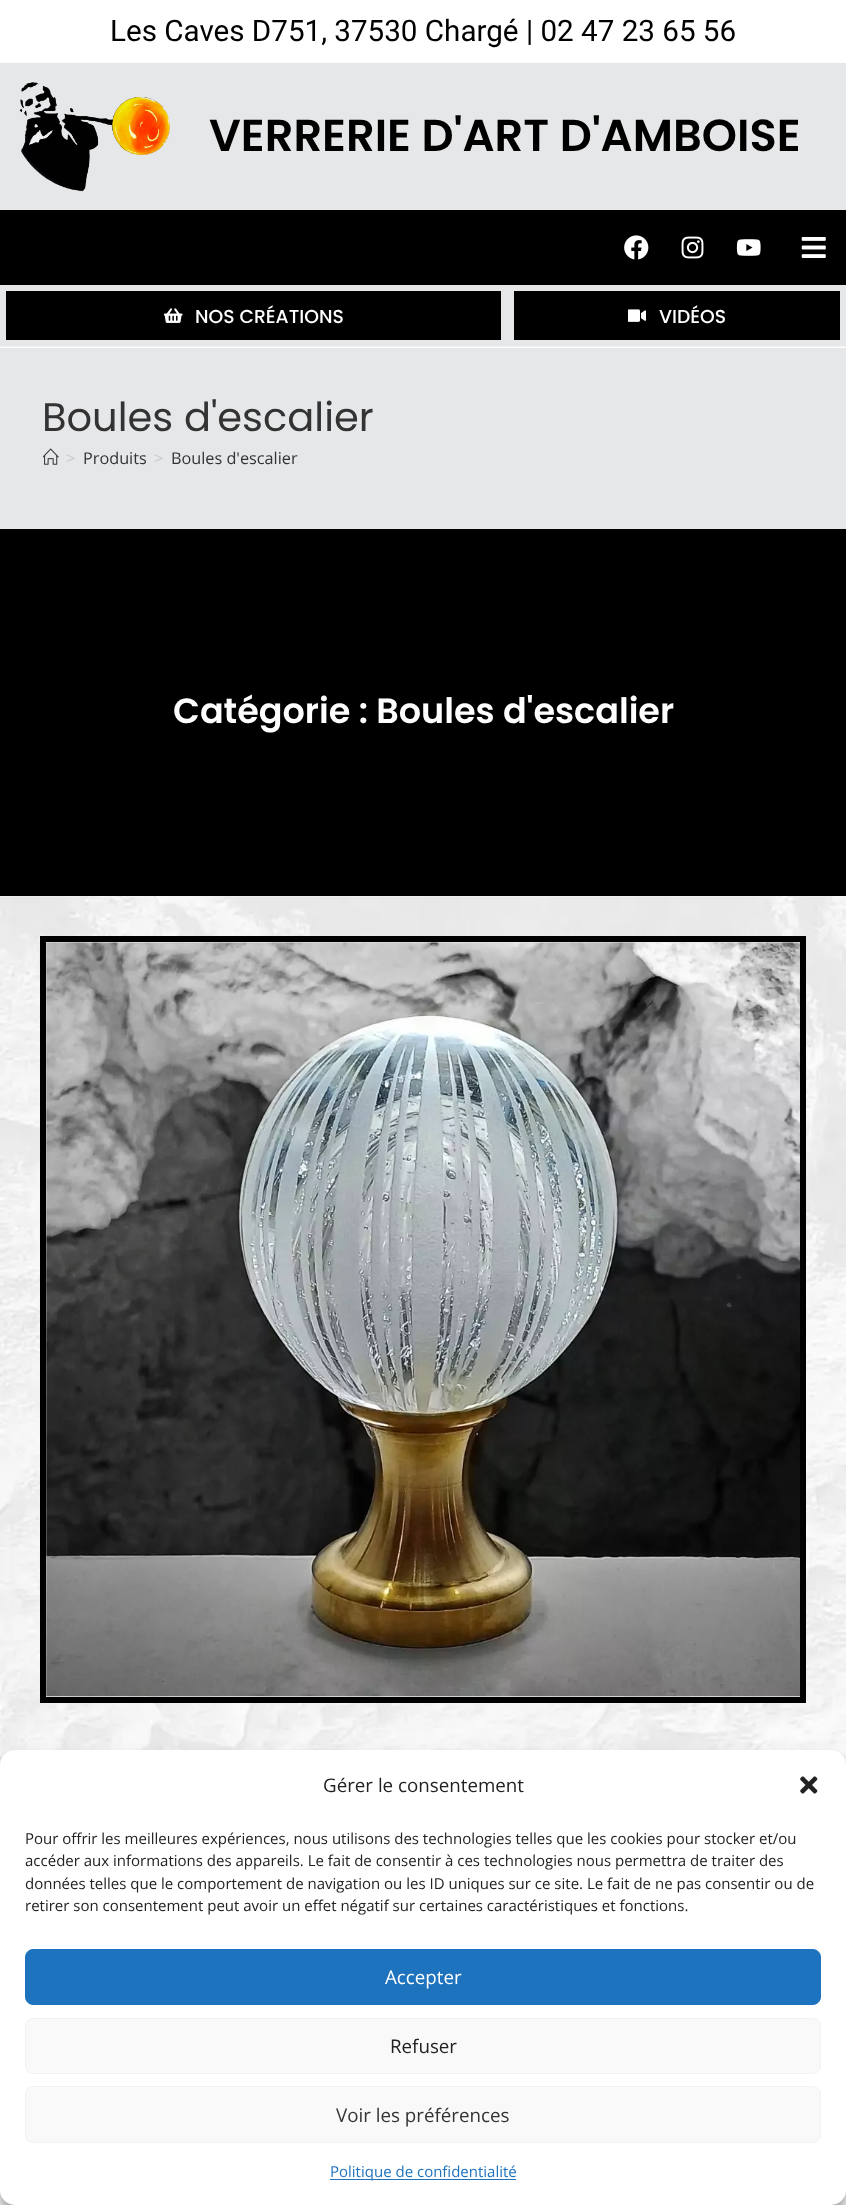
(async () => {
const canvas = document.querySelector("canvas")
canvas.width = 846
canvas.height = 2205
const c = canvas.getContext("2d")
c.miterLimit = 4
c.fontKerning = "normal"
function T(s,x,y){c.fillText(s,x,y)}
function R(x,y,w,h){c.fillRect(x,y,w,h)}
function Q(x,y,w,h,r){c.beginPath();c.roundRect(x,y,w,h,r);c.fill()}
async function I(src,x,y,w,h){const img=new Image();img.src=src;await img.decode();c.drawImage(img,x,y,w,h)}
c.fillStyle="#fff"
R(0,0,846,2205)
c.fillStyle="#f1f1f1"
R(0,346,846,1)
c.font="29.6px Roboto"
c.fillStyle="#000"
T("Les Caves D751, 37530 Chargé | 02 47 23 65 56",110,41)
c.fillStyle="#e5e7e9"
R(0,63,846,147)
await I("1.png",19,82,151,110)
c.font="600 44.8px Poppins"
c.fillStyle="#000"
T("VERRERIE D'ART D'AMBOISE",209,151)
R(0,210,846,75)
await I("2.png",624,235,25,25)
await I("3.png",681,236,23,23)
await I("4.png",736,239,25,17)
await I("5.png",801,237,25,21)
c.fillStyle="#e5e7e9"
R(0,285,846,61)
c.fillStyle="#000"
R(6,291,495,49)
await I("6.png",164,308,19,15)
c.font="500 18.75px Poppins"
c.fillStyle="#fff"
T("NOS CRÉATIONS",195,323)
c.fillStyle="#000"
R(514,291,326,49)
await I("7.png",628,309,18,13)
c.fillStyle="#fff"
T("VIDÉOS",659,323)
c.fillStyle="#e5e7e9"
R(0,348,846,181)
c.font="40px Poppins"
c.fillStyle="#333"
T("Boules d'escalier",42,431)
await I("8.png",43,448,16,17)
c.font="16.25px Open Sans"
c.fillStyle="#c6c6c6"
T(">",66,464)
c.fillStyle="#333"
T("Produits",83,464)
c.fillStyle="#c6c6c6"
T(">",154,464)
c.fillStyle="#333"
T("Boules d'escalier",171,464)
c.fillStyle="#000"
R(0,529,846,367)
c.font="600 35px Poppins"
c.fillStyle="#fff"
T("Catégorie : Boules d'escalier",173,723)
await I("9.png",0,896,846,869)
c.strokeStyle="#000"
c.lineWidth=6
c.strokeRect(43,939,760,761)
await I("10.png",46,942,754,755)
c.fillStyle="#0000003b"
c.filter="blur(4px)"
c.beginPath()
c.roundRect(0,1758,846,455,15)
c.fill()
c.filter="none"
c.fillStyle="#00000030"
c.filter="blur(12.5px)"
c.beginPath()
c.roundRect(0,1763,846,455,15)
c.fill()
c.filter="none"
c.fillStyle="#fff"
Q(0,1750,846,455,15)
c.font="18.75px Open Sans"
c.fillStyle="#222"
T("Gérer le consentement",323,1792)
await I("11.png",800,1776,18,18)
c.font="15px Open Sans"
T("Pour offrir les meilleures expériences, nous utilisons des technologies telles que les cookies pour stocker et/ou",25,1844)
T("accéder aux informations des appareils. Le fait de consentir à ces technologies nous permettra de traiter des",25,1866)
T("données telles que le comportement de navigation ou les ID uniques sur ce site. Le fait de ne pas consentir ou de",25,1889)
T("retirer son consentement peut avoir un effet négatif sur certaines caractéristiques et fonctions.",25,1911)
c.fillStyle="#1e73be"
c.beginPath()
c.roundRect(25.5,1949.5,795,55,7.5)
c.fill()
c.strokeStyle="#1e73be"
c.lineWidth=1
c.stroke()
c.font="18.75px Open Sans"
c.fillStyle="#fff"
T("Accepter",385,1984)
c.fillStyle="#f9f9f9"
c.beginPath()
c.roundRect(25.5,2018.5,795,55,7.5)
c.fill()
c.strokeStyle="#f2f2f2"
c.stroke()
c.fillStyle="#222"
T("Refuser",390,2053)
c.fillStyle="#f9f9f9"
c.beginPath()
c.roundRect(25.5,2086.5,795,56,7.5)
c.fill()
c.stroke()
c.fillStyle="#333"
T("Voir les préférences",336,2122)
c.fillStyle="#1e73be"
R(330,2179,186,1)
c.font="15px Open Sans"
T("Politique de confidentialité",330,2177)
})()
